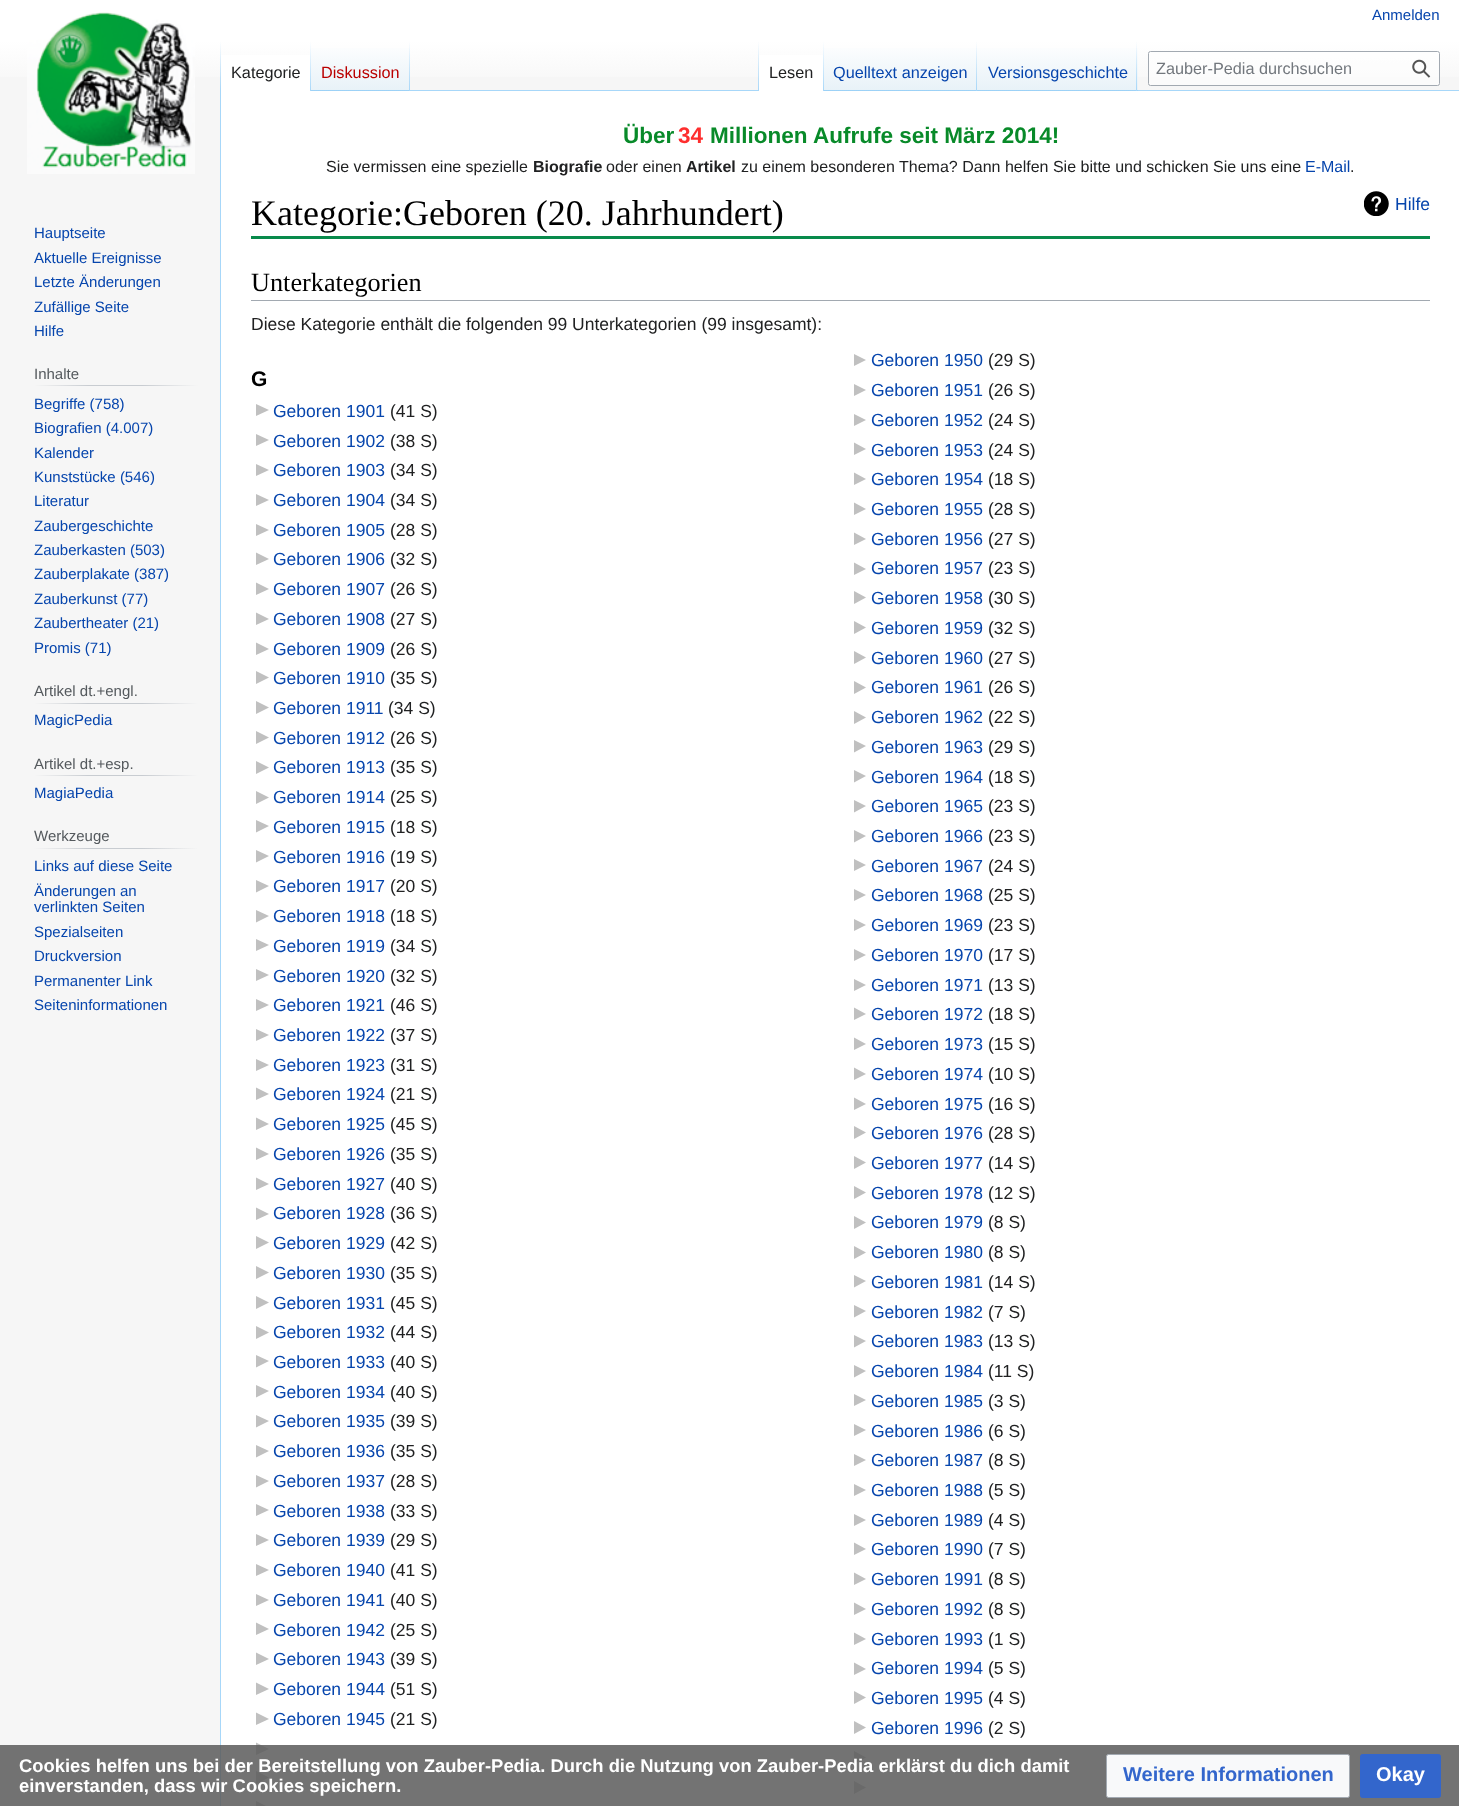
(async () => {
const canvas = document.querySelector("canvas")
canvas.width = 1459
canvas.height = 1806
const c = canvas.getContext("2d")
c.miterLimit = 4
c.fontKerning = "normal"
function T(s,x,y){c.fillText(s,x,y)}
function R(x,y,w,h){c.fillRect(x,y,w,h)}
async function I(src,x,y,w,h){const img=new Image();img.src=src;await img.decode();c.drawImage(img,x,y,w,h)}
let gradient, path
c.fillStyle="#f6f6f6"
R(0,0,1459,1806)
gradient = c.createLinearGradient(730,-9,730,91)
gradient.addColorStop(.5,"#fff")
gradient.addColorStop(1,"#f6f6f6")
c.fillStyle = gradient
R(0,0,1459,77)
c.font="15px Liberation Sans"
c.fillStyle="#0645ad"
T("Anmelden",1372,20)
c.fillStyle="#a7d7f9"
R(220,90,1,1716)
gradient = c.createLinearGradient(221,41,221,91)
gradient.addColorStop(0,"#a7d7f900")
gradient.addColorStop(1,"#a7d7f9")
c.fillStyle = gradient
R(220,41,1,50)
c.fillStyle="#fff"
R(221,55,89,36)
gradient = c.createLinearGradient(311,41,311,91)
gradient.addColorStop(0,"#fff")
gradient.addColorStop(1,"#a7d7f9")
c.fillStyle = gradient
R(310,41,1,50)
c.font="16.25px Liberation Sans"
c.fillStyle="#202122"
T("Kategorie",231,78)
gradient = c.createLinearGradient(361,91,361,41)
gradient.addColorStop(0,"#77c1f6")
gradient.addColorStop(.03,"#e8f2f8")
gradient.addColorStop(1,"#fff")
c.fillStyle = gradient
R(311,48,99,43)
gradient = c.createLinearGradient(409,41,409,91)
gradient.addColorStop(0,"#a7d7f900")
gradient.addColorStop(1,"#a7d7f9")
c.fillStyle = gradient
R(409,41,1,50)
c.fillStyle="#ba0000"
T("Diskussion",321,78)
c.fillStyle="#a7d7f9"
R(410,90,1049,1)
gradient = c.createLinearGradient(758,41,758,91)
gradient.addColorStop(0,"#a7d7f900")
gradient.addColorStop(1,"#a7d7f9")
c.fillStyle = gradient
R(758,41,1,50)
c.fillStyle="#fff"
R(759,55,64,36)
gradient = c.createLinearGradient(823,41,823,91)
gradient.addColorStop(0,"#fff")
gradient.addColorStop(1,"#a7d7f9")
c.fillStyle = gradient
R(823,41,1,50)
c.fillStyle="#202122"
T("Lesen",769,78)
gradient = c.createLinearGradient(901,91,901,41)
gradient.addColorStop(0,"#77c1f6")
gradient.addColorStop(.03,"#e8f2f8")
gradient.addColorStop(1,"#fff")
c.fillStyle = gradient
R(824,48,154,43)
gradient = c.createLinearGradient(977,41,977,91)
gradient.addColorStop(0,"#a7d7f900")
gradient.addColorStop(1,"#a7d7f9")
c.fillStyle = gradient
R(976,41,1,50)
c.fillStyle="#0645ad"
T("Quelltext anzeigen",833,78)
gradient = c.createLinearGradient(1058,91,1058,41)
gradient.addColorStop(0,"#77c1f6")
gradient.addColorStop(.03,"#e8f2f8")
gradient.addColorStop(1,"#fff")
c.fillStyle = gradient
R(978,48,160,43)
gradient = c.createLinearGradient(1137,41,1137,91)
gradient.addColorStop(0,"#a7d7f900")
gradient.addColorStop(1,"#a7d7f9")
c.fillStyle = gradient
R(1136,41,1,50)
c.fillStyle="#0645ad"
T("Versionsgeschichte",988,78)
c.fillStyle="#ffffff80"
c.beginPath()
c.roundRect(1148.5,51.5,291,34,2)
c.fill()
c.strokeStyle="#a2a9b1"
c.stroke()
c.fillStyle="#72777d"
T("Zauber-Pedia durchsuchen",1156,74)
await I("1.png",1412,59,19,19)
await I("2.png",27,12,168,162)
c.font="15px Liberation Sans"
c.fillStyle="#0645ad"
T("Hauptseite",34,238)
T("Aktuelle Ereignisse",34,263)
T("Letzte Änderungen",34,287)
T("Zufällige Seite",34,312)
T("Hilfe",34,336)
gradient = c.createLinearGradient(34,386,198,386)
gradient.addColorStop(0,"#f6f6f6")
gradient.addColorStop(.33,"#c8ccd1")
gradient.addColorStop(.66,"#c8ccd1")
gradient.addColorStop(1,"#f6f6f6")
c.fillStyle = gradient
R(34,385,164,1)
c.fillStyle="#54595d"
T("Inhalte",34,379)
c.fillStyle="#0645ad"
T("Begriffe (758)",34,409)
T("Biografien (4.007)",34,433)
T("Kalender",34,458)
T("Kunststücke (546)",34,482)
T("Literatur",34,506)
T("Zaubergeschichte",34,531)
T("Zauberkasten (503)",34,555)
T("Zauberplakate (387)",34,579)
T("Zauberkunst (77)",34,604)
T("Zaubertheater (21)",34,628)
T("Promis (71)",34,653)
gradient = c.createLinearGradient(34,703,198,703)
gradient.addColorStop(0,"#f6f6f6")
gradient.addColorStop(.33,"#c8ccd1")
gradient.addColorStop(.66,"#c8ccd1")
gradient.addColorStop(1,"#f6f6f6")
c.fillStyle = gradient
R(34,703,164,1)
c.fillStyle="#54595d"
T("Artikel dt.+engl.",34,696)
c.fillStyle="#0645ad"
T("MagicPedia",34,725)
gradient = c.createLinearGradient(34,776,198,776)
gradient.addColorStop(0,"#f6f6f6")
gradient.addColorStop(.33,"#c8ccd1")
gradient.addColorStop(.66,"#c8ccd1")
gradient.addColorStop(1,"#f6f6f6")
c.fillStyle = gradient
R(34,775,164,1)
c.fillStyle="#54595d"
T("Artikel dt.+esp.",34,769)
c.fillStyle="#0645ad"
T("MagiaPedia",34,798)
gradient = c.createLinearGradient(34,848,198,848)
gradient.addColorStop(0,"#f6f6f6")
gradient.addColorStop(.33,"#c8ccd1")
gradient.addColorStop(.66,"#c8ccd1")
gradient.addColorStop(1,"#f6f6f6")
c.fillStyle = gradient
R(34,848,164,1)
c.fillStyle="#54595d"
T("Werkzeuge",34,841)
c.fillStyle="#0645ad"
T("Links auf diese Seite",34,871)
T("Änderungen an",34,896)
T("verlinkten Seiten",34,912)
T("Spezialseiten",34,937)
T("Druckversion",34,961)
T("Permanenter Link",34,986)
T("Seiteninformationen",34,1010)
c.fillStyle="#fff"
R(221,91,1238,1715)
c.font="bold 22.5px Liberation Sans"
c.fillStyle="#088a29"
T("Über",623,143)
c.fillStyle="#fe2e2e"
T("34",678,143)
c.fillStyle="#088a29"
T("Millionen Aufrufe seit März 2014!",710,143)
c.font="16px Liberation Sans"
c.fillStyle="#202122"
T("Sie vermissen eine spezielle",326,172)
c.font="bold 16px Liberation Sans"
T("Biografie",533,172)
c.font="16px Liberation Sans"
T("oder einen",606,172)
c.font="bold 16px Liberation Sans"
T("Artikel",686,172)
c.font="16px Liberation Sans"
T("zu einem besonderen Thema? Dann helfen Sie bitte und schicken Sie uns eine",741,172)
c.fillStyle="#0645ad"
T("E-Mail",1305,172)
c.fillStyle="#202122"
T(".",1350,172)
c.fillStyle="#088a4b"
R(251,236,1179,3)
c.font="36px Liberation Serif"
c.fillStyle="#000"
T("Kategorie:Geboren (20. Jahrhundert)",251,225)
await I("3.png",1364,191,25,25)
c.font="17.5px Liberation Sans"
c.fillStyle="#0645ad"
T("Hilfe",1395,210)
c.fillStyle="#a2a9b1"
R(251,300,1179,1)
c.font="26.25px Liberation Serif"
c.fillStyle="#000"
T("Unterkategorien",251,291)
c.font="17.5px Liberation Sans"
c.fillStyle="#202122"
T("Diese Kategorie enthält die folgenden 99 Unterkategorien (99 insgesamt):",251,330)
c.font="bold 21px Liberation Sans"
c.fillStyle="#000"
T("G",251,386)
c.fillStyle="#c0c0c0"
path = new Path2D("M854 366v-12l12 6z")
c.fill(path)
c.font="17.5px Liberation Sans"
c.fillStyle="#0645ad"
T("Geboren 1950",871,366)
c.fillStyle="#202122"
T("(29 S)",988,366)
c.fillStyle="#c0c0c0"
path = new Path2D("M854 396v-12l12 6z")
c.fill(path)
c.fillStyle="#0645ad"
T("Geboren 1951",871,396)
c.fillStyle="#202122"
T("(26 S)",988,396)
c.fillStyle="#c0c0c0"
path = new Path2D("M256 416v-12l13 6z")
c.fill(path)
c.fillStyle="#0645ad"
T("Geboren 1901",273,417)
c.fillStyle="#202122"
T("(41 S)",390,417)
c.fillStyle="#c0c0c0"
path = new Path2D("M854 426v-12l12 6z")
c.fill(path)
c.fillStyle="#0645ad"
T("Geboren 1952",871,426)
c.fillStyle="#202122"
T("(24 S)",988,426)
c.fillStyle="#c0c0c0"
path = new Path2D("M256 446v-12l13 6z")
c.fill(path)
c.fillStyle="#0645ad"
T("Geboren 1902",273,447)
c.fillStyle="#202122"
T("(38 S)",390,447)
c.fillStyle="#c0c0c0"
path = new Path2D("M854 455v-12.5l12 6.5z")
c.fill(path)
c.fillStyle="#0645ad"
T("Geboren 1953",871,456)
c.fillStyle="#202122"
T("(24 S)",988,456)
c.fillStyle="#c0c0c0"
path = new Path2D("M256 476v-12l13 6z")
c.fill(path)
c.fillStyle="#0645ad"
T("Geboren 1903",273,476)
c.fillStyle="#202122"
T("(34 S)",390,476)
c.fillStyle="#c0c0c0"
path = new Path2D("M854 485v-12.5l12 6.5z")
c.fill(path)
c.fillStyle="#0645ad"
T("Geboren 1954",871,485)
c.fillStyle="#202122"
T("(18 S)",988,485)
c.fillStyle="#c0c0c0"
path = new Path2D("M256 506v-12l13 6z")
c.fill(path)
c.fillStyle="#0645ad"
T("Geboren 1904",273,506)
c.fillStyle="#202122"
T("(34 S)",390,506)
c.fillStyle="#c0c0c0"
path = new Path2D("M854 515v-12.5l12 6.5z")
c.fill(path)
c.fillStyle="#0645ad"
T("Geboren 1955",871,515)
c.fillStyle="#202122"
T("(28 S)",988,515)
c.fillStyle="#c0c0c0"
path = new Path2D("M256 536v-12l13 6z")
c.fill(path)
c.fillStyle="#0645ad"
T("Geboren 1905",273,536)
c.fillStyle="#202122"
T("(28 S)",390,536)
c.fillStyle="#c0c0c0"
path = new Path2D("M854 545v-12.5l12 6.5z")
c.fill(path)
c.fillStyle="#0645ad"
T("Geboren 1956",871,545)
c.fillStyle="#202122"
T("(27 S)",988,545)
c.fillStyle="#c0c0c0"
path = new Path2D("M256 565v-12.5l13 6.5z")
c.fill(path)
c.fillStyle="#0645ad"
T("Geboren 1906",273,565)
c.fillStyle="#202122"
T("(32 S)",390,565)
c.fillStyle="#c0c0c0"
path = new Path2D("M854 575v-12.5l12 6.5z")
c.fill(path)
c.fillStyle="#0645ad"
T("Geboren 1957",871,574)
c.fillStyle="#202122"
T("(23 S)",988,574)
c.fillStyle="#c0c0c0"
path = new Path2D("M256 595v-12.5l13 6.5z")
c.fill(path)
c.fillStyle="#0645ad"
T("Geboren 1907",273,595)
c.fillStyle="#202122"
T("(26 S)",390,595)
c.fillStyle="#c0c0c0"
path = new Path2D("M854 604v-13l12 6.5z")
c.fill(path)
c.fillStyle="#0645ad"
T("Geboren 1958",871,604)
c.fillStyle="#202122"
T("(30 S)",988,604)
c.fillStyle="#c0c0c0"
path = new Path2D("M256 625v-12.5l13 6.5z")
c.fill(path)
c.fillStyle="#0645ad"
T("Geboren 1908",273,625)
c.fillStyle="#202122"
T("(27 S)",390,625)
c.fillStyle="#c0c0c0"
path = new Path2D("M854 634v-13l12 6.5z")
c.fill(path)
c.fillStyle="#0645ad"
T("Geboren 1959",871,634)
c.fillStyle="#202122"
T("(32 S)",988,634)
c.fillStyle="#c0c0c0"
path = new Path2D("M256 655v-12.5l13 6.5z")
c.fill(path)
c.fillStyle="#0645ad"
T("Geboren 1909",273,655)
c.fillStyle="#202122"
T("(26 S)",390,655)
c.fillStyle="#c0c0c0"
path = new Path2D("M854 664v-13l12 6.5z")
c.fill(path)
c.fillStyle="#0645ad"
T("Geboren 1960",871,664)
c.fillStyle="#202122"
T("(27 S)",988,664)
c.fillStyle="#c0c0c0"
path = new Path2D("M256 684v-13l13 6.5z")
c.fill(path)
c.fillStyle="#0645ad"
T("Geboren 1910",273,684)
c.fillStyle="#202122"
T("(35 S)",390,684)
c.fillStyle="#c0c0c0"
path = new Path2D("M854 694v-13l12 6.5z")
c.fill(path)
c.fillStyle="#0645ad"
T("Geboren 1961",871,693)
c.fillStyle="#202122"
T("(26 S)",988,693)
c.fillStyle="#c0c0c0"
path = new Path2D("M256 714v-13l13 6.5z")
c.fill(path)
c.fillStyle="#0645ad"
T("Geboren 1911",273,714)
c.fillStyle="#202122"
T("(34 S)",388,714)
c.fillStyle="#c0c0c0"
path = new Path2D("M854 724v-13l12 6.5z")
c.fill(path)
c.fillStyle="#0645ad"
T("Geboren 1962",871,723)
c.fillStyle="#202122"
T("(22 S)",988,723)
c.fillStyle="#c0c0c0"
path = new Path2D("M256 744v-13l13 6.5z")
c.fill(path)
c.fillStyle="#0645ad"
T("Geboren 1912",273,744)
c.fillStyle="#202122"
T("(26 S)",390,744)
c.fillStyle="#c0c0c0"
path = new Path2D("M854 752.5v-12.5l12 6z")
c.fill(path)
c.fillStyle="#0645ad"
T("Geboren 1963",871,753)
c.fillStyle="#202122"
T("(29 S)",988,753)
c.fillStyle="#c0c0c0"
path = new Path2D("M256 774v-13l13 6.5z")
c.fill(path)
c.fillStyle="#0645ad"
T("Geboren 1913",273,773)
c.fillStyle="#202122"
T("(35 S)",390,773)
c.fillStyle="#c0c0c0"
path = new Path2D("M854 782.5v-12.5l12 6z")
c.fill(path)
c.fillStyle="#0645ad"
T("Geboren 1964",871,783)
c.fillStyle="#202122"
T("(18 S)",988,783)
c.fillStyle="#c0c0c0"
path = new Path2D("M256 804v-13l13 6.5z")
c.fill(path)
c.fillStyle="#0645ad"
T("Geboren 1914",273,803)
c.fillStyle="#202122"
T("(25 S)",390,803)
c.fillStyle="#c0c0c0"
path = new Path2D("M854 812.5v-12.5l12 6z")
c.fill(path)
c.fillStyle="#0645ad"
T("Geboren 1965",871,812)
c.fillStyle="#202122"
T("(23 S)",988,812)
c.fillStyle="#c0c0c0"
path = new Path2D("M256 832.5v-12.5l13 6z")
c.fill(path)
c.fillStyle="#0645ad"
T("Geboren 1915",273,833)
c.fillStyle="#202122"
T("(18 S)",390,833)
c.fillStyle="#c0c0c0"
path = new Path2D("M854 842.5v-12.5l12 6z")
c.fill(path)
c.fillStyle="#0645ad"
T("Geboren 1966",871,842)
c.fillStyle="#202122"
T("(23 S)",988,842)
c.fillStyle="#c0c0c0"
path = new Path2D("M256 862.5v-12.5l13 6z")
c.fill(path)
c.fillStyle="#0645ad"
T("Geboren 1916",273,863)
c.fillStyle="#202122"
T("(19 S)",390,863)
c.fillStyle="#c0c0c0"
path = new Path2D("M854 871v-12l12 6z")
c.fill(path)
c.fillStyle="#0645ad"
T("Geboren 1967",871,872)
c.fillStyle="#202122"
T("(24 S)",988,872)
c.fillStyle="#c0c0c0"
path = new Path2D("M256 892.5v-12.5l13 6z")
c.fill(path)
c.fillStyle="#0645ad"
T("Geboren 1917",273,892)
c.fillStyle="#202122"
T("(20 S)",390,892)
c.fillStyle="#c0c0c0"
path = new Path2D("M854 901v-12l12 6z")
c.fill(path)
c.fillStyle="#0645ad"
T("Geboren 1968",871,901)
c.fillStyle="#202122"
T("(25 S)",988,901)
c.fillStyle="#c0c0c0"
path = new Path2D("M256 922.5v-12.5l13 6z")
c.fill(path)
c.fillStyle="#0645ad"
T("Geboren 1918",273,922)
c.fillStyle="#202122"
T("(18 S)",390,922)
c.fillStyle="#c0c0c0"
path = new Path2D("M854 931v-12l12 6z")
c.fill(path)
c.fillStyle="#0645ad"
T("Geboren 1969",871,931)
c.fillStyle="#202122"
T("(23 S)",988,931)
c.fillStyle="#c0c0c0"
path = new Path2D("M256 951v-12l13 6z")
c.fill(path)
c.fillStyle="#0645ad"
T("Geboren 1919",273,952)
c.fillStyle="#202122"
T("(34 S)",390,952)
c.fillStyle="#c0c0c0"
path = new Path2D("M854 961v-12l12 6z")
c.fill(path)
c.fillStyle="#0645ad"
T("Geboren 1970",871,961)
c.fillStyle="#202122"
T("(17 S)",988,961)
c.fillStyle="#c0c0c0"
path = new Path2D("M256 981v-12l13 6z")
c.fill(path)
c.fillStyle="#0645ad"
T("Geboren 1920",273,982)
c.fillStyle="#202122"
T("(32 S)",390,982)
c.fillStyle="#c0c0c0"
path = new Path2D("M854 991v-12l12 6z")
c.fill(path)
c.fillStyle="#0645ad"
T("Geboren 1971",871,991)
c.fillStyle="#202122"
T("(13 S)",988,991)
c.fillStyle="#c0c0c0"
path = new Path2D("M256 1011v-12l13 6z")
c.fill(path)
c.fillStyle="#0645ad"
T("Geboren 1921",273,1011)
c.fillStyle="#202122"
T("(46 S)",390,1011)
c.fillStyle="#c0c0c0"
path = new Path2D("M854 1020v-12.5l12 6.5z")
c.fill(path)
c.fillStyle="#0645ad"
T("Geboren 1972",871,1020)
c.fillStyle="#202122"
T("(18 S)",988,1020)
c.fillStyle="#c0c0c0"
path = new Path2D("M256 1041v-12l13 6z")
c.fill(path)
c.fillStyle="#0645ad"
T("Geboren 1922",273,1041)
c.fillStyle="#202122"
T("(37 S)",390,1041)
c.fillStyle="#c0c0c0"
path = new Path2D("M854 1050v-12.5l12 6.5z")
c.fill(path)
c.fillStyle="#0645ad"
T("Geboren 1973",871,1050)
c.fillStyle="#202122"
T("(15 S)",988,1050)
c.fillStyle="#c0c0c0"
path = new Path2D("M256 1071v-12l13 6z")
c.fill(path)
c.fillStyle="#0645ad"
T("Geboren 1923",273,1071)
c.fillStyle="#202122"
T("(31 S)",390,1071)
c.fillStyle="#c0c0c0"
path = new Path2D("M854 1080v-12.5l12 6.5z")
c.fill(path)
c.fillStyle="#0645ad"
T("Geboren 1974",871,1080)
c.fillStyle="#202122"
T("(10 S)",988,1080)
c.fillStyle="#c0c0c0"
path = new Path2D("M256 1100v-12.5l13 6.5z")
c.fill(path)
c.fillStyle="#0645ad"
T("Geboren 1924",273,1100)
c.fillStyle="#202122"
T("(21 S)",390,1100)
c.fillStyle="#c0c0c0"
path = new Path2D("M854 1110v-12.5l12 6.5z")
c.fill(path)
c.fillStyle="#0645ad"
T("Geboren 1975",871,1110)
c.fillStyle="#202122"
T("(16 S)",988,1110)
c.fillStyle="#c0c0c0"
path = new Path2D("M256 1130v-12.5l13 6.5z")
c.fill(path)
c.fillStyle="#0645ad"
T("Geboren 1925",273,1130)
c.fillStyle="#202122"
T("(45 S)",390,1130)
c.fillStyle="#c0c0c0"
path = new Path2D("M854 1139v-13l12 6.5z")
c.fill(path)
c.fillStyle="#0645ad"
T("Geboren 1976",871,1139)
c.fillStyle="#202122"
T("(28 S)",988,1139)
c.fillStyle="#c0c0c0"
path = new Path2D("M256 1160v-12.5l13 6.5z")
c.fill(path)
c.fillStyle="#0645ad"
T("Geboren 1926",273,1160)
c.fillStyle="#202122"
T("(35 S)",390,1160)
c.fillStyle="#c0c0c0"
path = new Path2D("M854 1169v-13l12 6.5z")
c.fill(path)
c.fillStyle="#0645ad"
T("Geboren 1977",871,1169)
c.fillStyle="#202122"
T("(14 S)",988,1169)
c.fillStyle="#c0c0c0"
path = new Path2D("M256 1190v-12.5l13 6.5z")
c.fill(path)
c.fillStyle="#0645ad"
T("Geboren 1927",273,1190)
c.fillStyle="#202122"
T("(40 S)",390,1190)
c.fillStyle="#c0c0c0"
path = new Path2D("M854 1199v-13l12 6.5z")
c.fill(path)
c.fillStyle="#0645ad"
T("Geboren 1978",871,1199)
c.fillStyle="#202122"
T("(12 S)",988,1199)
c.fillStyle="#c0c0c0"
path = new Path2D("M256 1220v-12.5l13 6.5z")
c.fill(path)
c.fillStyle="#0645ad"
T("Geboren 1928",273,1219)
c.fillStyle="#202122"
T("(36 S)",390,1219)
c.fillStyle="#c0c0c0"
path = new Path2D("M854 1229v-13l12 6.5z")
c.fill(path)
c.fillStyle="#0645ad"
T("Geboren 1979",871,1228)
c.fillStyle="#202122"
T("(8 S)",988,1228)
c.fillStyle="#c0c0c0"
path = new Path2D("M256 1249v-13l13 6.5z")
c.fill(path)
c.fillStyle="#0645ad"
T("Geboren 1929",273,1249)
c.fillStyle="#202122"
T("(42 S)",390,1249)
c.fillStyle="#c0c0c0"
path = new Path2D("M854 1259v-13l12 6.5z")
c.fill(path)
c.fillStyle="#0645ad"
T("Geboren 1980",871,1258)
c.fillStyle="#202122"
T("(8 S)",988,1258)
c.fillStyle="#c0c0c0"
path = new Path2D("M256 1279v-13l13 6.5z")
c.fill(path)
c.fillStyle="#0645ad"
T("Geboren 1930",273,1279)
c.fillStyle="#202122"
T("(35 S)",390,1279)
c.fillStyle="#c0c0c0"
path = new Path2D("M854 1287.5v-12.5l12 6z")
c.fill(path)
c.fillStyle="#0645ad"
T("Geboren 1981",871,1288)
c.fillStyle="#202122"
T("(14 S)",988,1288)
c.fillStyle="#c0c0c0"
path = new Path2D("M256 1309v-13l13 6.5z")
c.fill(path)
c.fillStyle="#0645ad"
T("Geboren 1931",273,1309)
c.fillStyle="#202122"
T("(45 S)",390,1309)
c.fillStyle="#c0c0c0"
path = new Path2D("M854 1317.5v-12.5l12 6z")
c.fill(path)
c.fillStyle="#0645ad"
T("Geboren 1982",871,1318)
c.fillStyle="#202122"
T("(7 S)",988,1318)
c.fillStyle="#c0c0c0"
path = new Path2D("M256 1339v-13l13 6.5z")
c.fill(path)
c.fillStyle="#0645ad"
T("Geboren 1932",273,1338)
c.fillStyle="#202122"
T("(44 S)",390,1338)
c.fillStyle="#c0c0c0"
path = new Path2D("M854 1347.5v-12.5l12 6z")
c.fill(path)
c.fillStyle="#0645ad"
T("Geboren 1983",871,1347)
c.fillStyle="#202122"
T("(13 S)",988,1347)
c.fillStyle="#c0c0c0"
path = new Path2D("M256 1367.5v-12.5l13 6z")
c.fill(path)
c.fillStyle="#0645ad"
T("Geboren 1933",273,1368)
c.fillStyle="#202122"
T("(40 S)",390,1368)
c.fillStyle="#c0c0c0"
path = new Path2D("M854 1377.5v-12.5l12 6z")
c.fill(path)
c.fillStyle="#0645ad"
T("Geboren 1984",871,1377)
c.fillStyle="#202122"
T("(11 S)",988,1377)
c.fillStyle="#c0c0c0"
path = new Path2D("M256 1397.5v-12.5l13 6z")
c.fill(path)
c.fillStyle="#0645ad"
T("Geboren 1934",273,1398)
c.fillStyle="#202122"
T("(40 S)",390,1398)
c.fillStyle="#c0c0c0"
path = new Path2D("M854 1406v-12l12 6z")
c.fill(path)
c.fillStyle="#0645ad"
T("Geboren 1985",871,1407)
c.fillStyle="#202122"
T("(3 S)",988,1407)
c.fillStyle="#c0c0c0"
path = new Path2D("M256 1427.5v-12.5l13 6z")
c.fill(path)
c.fillStyle="#0645ad"
T("Geboren 1935",273,1427)
c.fillStyle="#202122"
T("(39 S)",390,1427)
c.fillStyle="#c0c0c0"
path = new Path2D("M854 1436v-12l12 6z")
c.fill(path)
c.fillStyle="#0645ad"
T("Geboren 1986",871,1437)
c.fillStyle="#202122"
T("(6 S)",988,1437)
c.fillStyle="#c0c0c0"
path = new Path2D("M256 1457.5v-12.5l13 6z")
c.fill(path)
c.fillStyle="#0645ad"
T("Geboren 1936",273,1457)
c.fillStyle="#202122"
T("(35 S)",390,1457)
c.fillStyle="#c0c0c0"
path = new Path2D("M854 1466v-12l12 6z")
c.fill(path)
c.fillStyle="#0645ad"
T("Geboren 1987",871,1466)
c.fillStyle="#202122"
T("(8 S)",988,1466)
c.fillStyle="#c0c0c0"
path = new Path2D("M256 1487.5v-12.5l13 6z")
c.fill(path)
c.fillStyle="#0645ad"
T("Geboren 1937",273,1487)
c.fillStyle="#202122"
T("(28 S)",390,1487)
c.fillStyle="#c0c0c0"
path = new Path2D("M854 1496v-12l12 6z")
c.fill(path)
c.fillStyle="#0645ad"
T("Geboren 1988",871,1496)
c.fillStyle="#202122"
T("(5 S)",988,1496)
c.fillStyle="#c0c0c0"
path = new Path2D("M256 1516v-12l13 6z")
c.fill(path)
c.fillStyle="#0645ad"
T("Geboren 1938",273,1517)
c.fillStyle="#202122"
T("(33 S)",390,1517)
c.fillStyle="#c0c0c0"
path = new Path2D("M854 1526v-12l12 6z")
c.fill(path)
c.fillStyle="#0645ad"
T("Geboren 1989",871,1526)
c.fillStyle="#202122"
T("(4 S)",988,1526)
c.fillStyle="#c0c0c0"
path = new Path2D("M256 1546v-12l13 6z")
c.fill(path)
c.fillStyle="#0645ad"
T("Geboren 1939",273,1546)
c.fillStyle="#202122"
T("(29 S)",390,1546)
c.fillStyle="#c0c0c0"
path = new Path2D("M854 1555v-12.5l12 6.5z")
c.fill(path)
c.fillStyle="#0645ad"
T("Geboren 1990",871,1555)
c.fillStyle="#202122"
T("(7 S)",988,1555)
c.fillStyle="#c0c0c0"
path = new Path2D("M256 1576v-12l13 6z")
c.fill(path)
c.fillStyle="#0645ad"
T("Geboren 1940",273,1576)
c.fillStyle="#202122"
T("(41 S)",390,1576)
c.fillStyle="#c0c0c0"
path = new Path2D("M854 1585v-12.5l12 6.5z")
c.fill(path)
c.fillStyle="#0645ad"
T("Geboren 1991",871,1585)
c.fillStyle="#202122"
T("(8 S)",988,1585)
c.fillStyle="#c0c0c0"
path = new Path2D("M256 1606v-12l13 6z")
c.fill(path)
c.fillStyle="#0645ad"
T("Geboren 1941",273,1606)
c.fillStyle="#202122"
T("(40 S)",390,1606)
c.fillStyle="#c0c0c0"
path = new Path2D("M854 1615v-12.5l12 6.5z")
c.fill(path)
c.fillStyle="#0645ad"
T("Geboren 1992",871,1615)
c.fillStyle="#202122"
T("(8 S)",988,1615)
c.fillStyle="#c0c0c0"
path = new Path2D("M256 1635v-12.5l13 6.5z")
c.fill(path)
c.fillStyle="#0645ad"
T("Geboren 1942",273,1636)
c.fillStyle="#202122"
T("(25 S)",390,1636)
c.fillStyle="#c0c0c0"
path = new Path2D("M854 1645v-12.5l12 6.5z")
c.fill(path)
c.fillStyle="#0645ad"
T("Geboren 1993",871,1645)
c.fillStyle="#202122"
T("(1 S)",988,1645)
c.fillStyle="#c0c0c0"
path = new Path2D("M256 1665v-12.5l13 6.5z")
c.fill(path)
c.fillStyle="#0645ad"
T("Geboren 1943",273,1665)
c.fillStyle="#202122"
T("(39 S)",390,1665)
c.fillStyle="#c0c0c0"
path = new Path2D("M854 1675v-12.5l12 6.5z")
c.fill(path)
c.fillStyle="#0645ad"
T("Geboren 1994",871,1674)
c.fillStyle="#202122"
T("(5 S)",988,1674)
c.fillStyle="#c0c0c0"
path = new Path2D("M256 1695v-12.5l13 6.5z")
c.fill(path)
c.fillStyle="#0645ad"
T("Geboren 1944",273,1695)
c.fillStyle="#202122"
T("(51 S)",390,1695)
c.fillStyle="#c0c0c0"
path = new Path2D("M854 1704v-13l12 6.5z")
c.fill(path)
c.fillStyle="#0645ad"
T("Geboren 1995",871,1704)
c.fillStyle="#202122"
T("(4 S)",988,1704)
c.fillStyle="#c0c0c0"
path = new Path2D("M256 1725v-12.5l13 6.5z")
c.fill(path)
c.fillStyle="#0645ad"
T("Geboren 1945",273,1725)
c.fillStyle="#202122"
T("(21 S)",390,1725)
c.fillStyle="#c0c0c0"
path = new Path2D("M854 1734v-13l12 6.5z")
c.fill(path)
c.fillStyle="#0645ad"
T("Geboren 1996",871,1734)
c.fillStyle="#202122"
T("(2 S)",988,1734)
c.fillStyle="#c0c0c0"
path = new Path2D("M256 1755v-12.5l13 6.5zm0 29v-13l13 6.5z")
c.fill(path)
path = new Path2D("M854 1764v-13l12 6.5zm0 30v-13l12 6.5z")
c.fill(path)
path = new Path2D("M256 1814v-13l13 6.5z")
c.fill(path)
c.fillStyle="#5a5a5ad9"
R(0,1745,1459,61)
c.font="bold 18.4px Liberation Sans"
c.fillStyle="#fff"
T("Cookies helfen uns bei der Bereitstellung von Zauber-Pedia. Durch die Nutzung von Zauber-Pedia erklärst du dich damit",19,1772)
T("einverstanden, dass wir Cookies speichern.",19,1792)
c.fillStyle="#f8f9fa"
c.beginPath()
c.roundRect(1106.5,1754.5,243,43,2)
c.fill()
c.stroke()
c.font="bold 20px Liberation Sans"
c.fillStyle="#36c"
T("Weitere Informationen",1123,1781)
c.beginPath()
c.roundRect(1360.5,1754.5,80,43,2)
c.fill()
c.strokeStyle="#36c"
c.stroke()
c.fillStyle="#fff"
T("Okay",1376,1781)
})()
